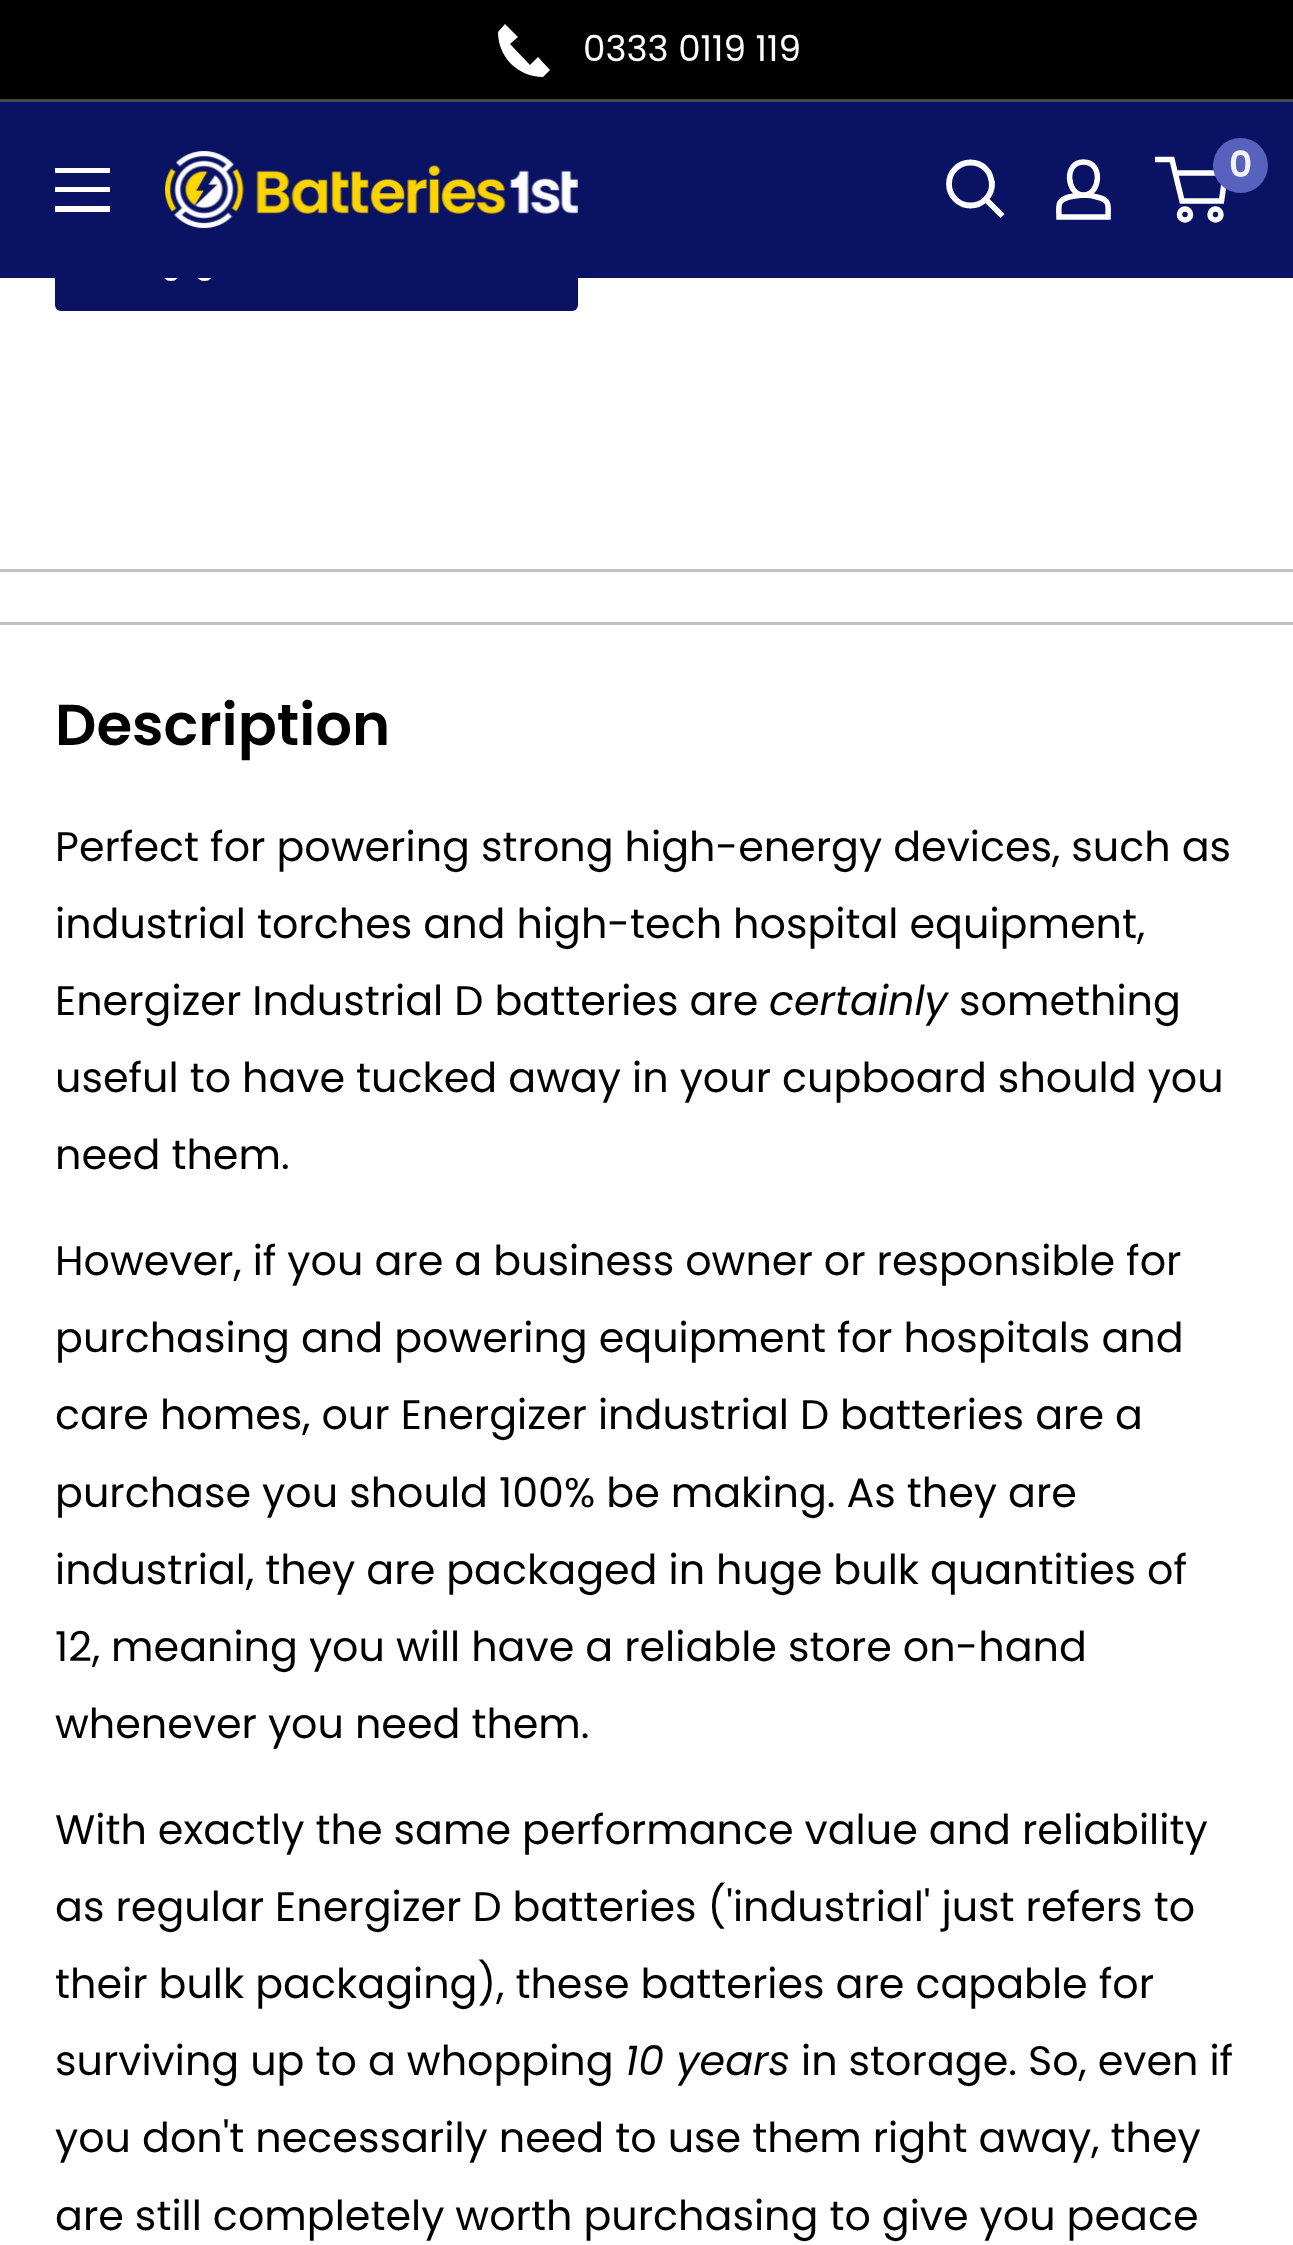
(async () => {
const canvas = document.querySelector("canvas")
canvas.width = 1293
canvas.height = 2245
const c = canvas.getContext("2d")
c.miterLimit = 4
c.fontKerning = "normal"
function T(s,x,y){c.fillText(s,x,y)}
function R(x,y,w,h){c.fillRect(x,y,w,h)}
function Q(x,y,w,h,r){c.beginPath();c.roundRect(x,y,w,h,r);c.fill()}
async function I(src,x,y,w,h){const img=new Image();img.src=src;await img.decode();c.drawImage(img,x,y,w,h)}
let path
c.fillStyle="#fff"
R(0,0,1293,2245)
c.fillStyle="#000"
R(0,0,1293,99)
c.fillStyle="#494949"
R(0,99,1293,3)
c.fillStyle="#fff"
path = new Path2D("M538 57l-8 8l-20-21l8-7l-13-13l-7 8c0 25 20 45 45 45l7-7z")
c.fill(path,"evenodd")
c.font="35.75px Poppins"
T("0333 0119 119",583,61)
c.fillStyle="#0a1363"
Q(55,179,523,132,6)
c.beginPath()
c.arc(171,272,6,0,7)
c.strokeStyle="#fff"
c.lineWidth=6.1
c.stroke()
c.beginPath()
c.arc(204.5,272,6,0,7)
c.stroke()
R(0,102,1293,176)
c.fillStyle="#fff"
path = new Path2D("M55 206h55v6h-55zm0-38h55v5h-55zm0 19h55v5h-55z")
c.fill(path,"evenodd")
await I("1.png",165,151,413,78)
path = new Path2D("M1000.5 214l-14-14")
c.lineWidth=5.8
c.lineCap="square"
c.stroke(path)
c.beginPath()
c.arc(970.5,184,21.5,0,7)
c.stroke()
path = new Path2D("M1083.5 195c5 0 10.5 1 15.5 2.5c11.5 3 9 9.5 9 19.5h-49c0-11-2.5-16.5 10-20c4.5-1 9.5-1.5 14.5-2zm0 0c-17 0-20-33 0-33c20 0 17 33 0 33z")
c.lineWidth=5.5
c.lineCap="butt"
c.stroke(path)
c.beginPath()
c.arc(1185,214.5,5.5,0,7)
c.stroke()
c.beginPath()
c.arc(1215.5,214.5,5.5,0,7)
c.stroke()
path = new Path2D("M1175 173h50.5l-4 28h-39.5l-10-41.5h-17")
c.stroke(path)
c.fillStyle="#5762bf"
c.beginPath()
c.arc(1240.5,165.5,27.5,0,7)
c.fill()
c.font="600 36px Poppins"
c.fillStyle="#f2f2f2"
T("0",1229,177)
c.fillStyle="#c1c1c1"
R(0,569,1293,3)
R(0,622,1293,3)
c.font="600 57.75px Poppins"
c.fillStyle="#000"
T("Description",55,745)
c.font="41.25px Poppins"
T("Perfect for powering strong high-energy devices, such as",55,861)
T("industrial torches and high-tech hospital equipment,",55,938)
T("Energizer Industrial D batteries are",55,1015)
c.font="italic 41.25px Poppins"
T("certainly",769,1015)
c.font="41.25px Poppins"
T("something",959,1015)
T("useful to have tucked away in your cupboard should you",55,1092)
T("need them.",55,1169)
T("However, if you are a business owner or responsible for",55,1275)
T("purchasing and powering equipment for hospitals and",55,1352)
T("care homes, our Energizer industrial D batteries are a",55,1429)
T("purchase you should 100% be making. As they are",55,1507)
T("industrial, they are packaged in huge bulk quantities of",55,1584)
T("12, meaning you will have a reliable store on-hand",55,1661)
T("whenever you need them.",55,1738)
T("With exactly the same performance value and reliability",55,1844)
T("as regular Energizer D batteries ('industrial' just refers to",55,1921)
T("their bulk packaging), these batteries are capable for",55,1998)
T("surviving up to a whopping",55,2075)
c.font="italic 41.25px Poppins"
T("10 years",625,2075)
c.font="41.25px Poppins"
T("in storage. So, even if",801,2075)
T("you don't necessarily need to use them right away, they",55,2152)
T("are still completely worth purchasing to give you peace",55,2230)
})()
